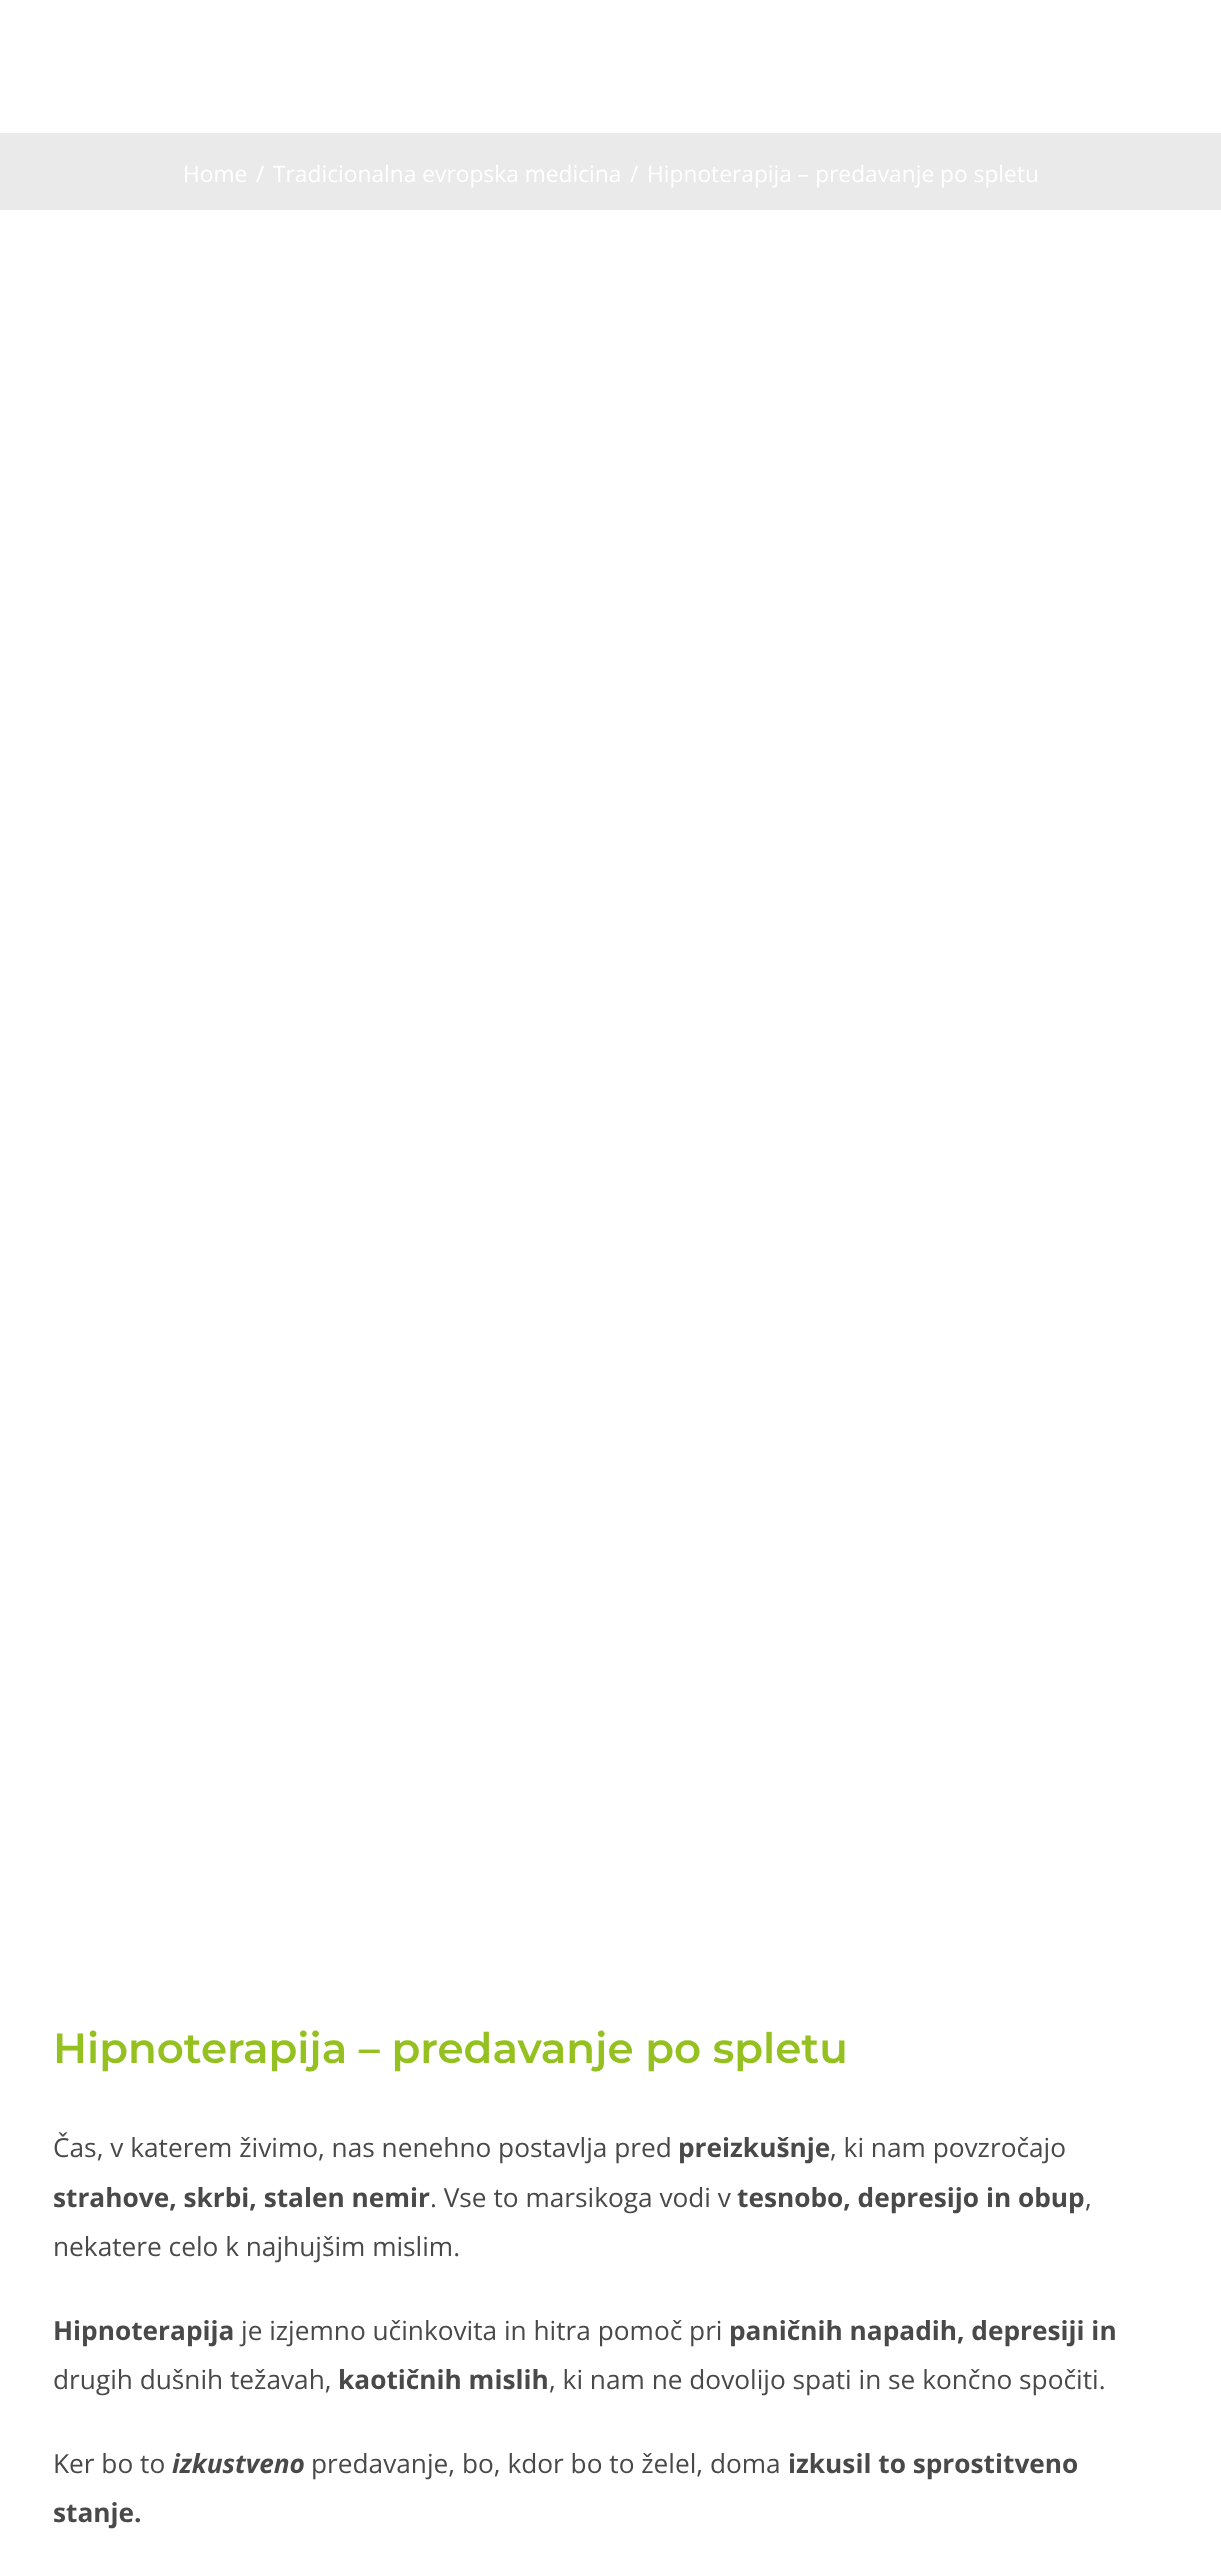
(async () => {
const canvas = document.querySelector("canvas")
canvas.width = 1221
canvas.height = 2571
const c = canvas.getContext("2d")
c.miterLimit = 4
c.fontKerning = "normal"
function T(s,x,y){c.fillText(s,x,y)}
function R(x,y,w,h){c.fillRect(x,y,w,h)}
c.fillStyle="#fff"
R(0,0,1221,2571)
c.fillStyle="#eaeaea"
R(0,133,1221,77)
c.font="22.75px Open Sans"
c.fillStyle="#fff"
T("Home",183,182)
T("/",256,182)
T("Tradicionalna evropska medicina",273,182)
T("/",630,182)
T("Hipnoterapija – predavanje po spletu",647,182)
c.font="600 42px Montserrat"
c.fillStyle="#94c11f"
T("Hipnoterapija – predavanje po spletu",53,2063)
c.font="26.25px Open Sans"
c.fillStyle="#494949"
T("Čas, v katerem živimo, nas nenehno postavlja pred",53,2157)
c.font="bold 26.25px Open Sans"
T("preizkušnje",678,2157)
c.font="26.25px Open Sans"
T(", ki nam povzročajo",830,2157)
c.font="bold 26.25px Open Sans"
T("strahove, skrbi, stalen nemir",53,2207)
c.font="26.25px Open Sans"
T(". Vse to marsikoga vodi v",430,2207)
c.font="bold 26.25px Open Sans"
T("tesnobo, depresijo in obup",737,2207)
c.font="26.25px Open Sans"
T(",",1085,2207)
T("nekatere celo k najhujšim mislim.",53,2256)
c.font="bold 26.25px Open Sans"
T("Hipnoterapija",53,2340)
c.font="26.25px Open Sans"
T("je izjemno učinkovita in hitra pomoč pri",241,2340)
c.font="bold 26.25px Open Sans"
T("paničnih napadih, depresiji in",729,2340)
c.font="26.25px Open Sans"
T("drugih dušnih težavah,",53,2389)
c.font="bold 26.25px Open Sans"
T("kaotičnih mislih",338,2389)
c.font="26.25px Open Sans"
T(", ki nam ne dovolijo spati in se končno spočiti.",549,2389)
T("Ker bo to",53,2473)
c.font="italic bold 26.25px Open Sans"
T("izkustveno",172,2473)
c.font="26.25px Open Sans"
T("predavanje, bo, kdor bo to želel, doma",311,2473)
c.font="bold 26.25px Open Sans"
T("izkusil to sprostitveno",788,2473)
T("stanje.",53,2522)
})()
